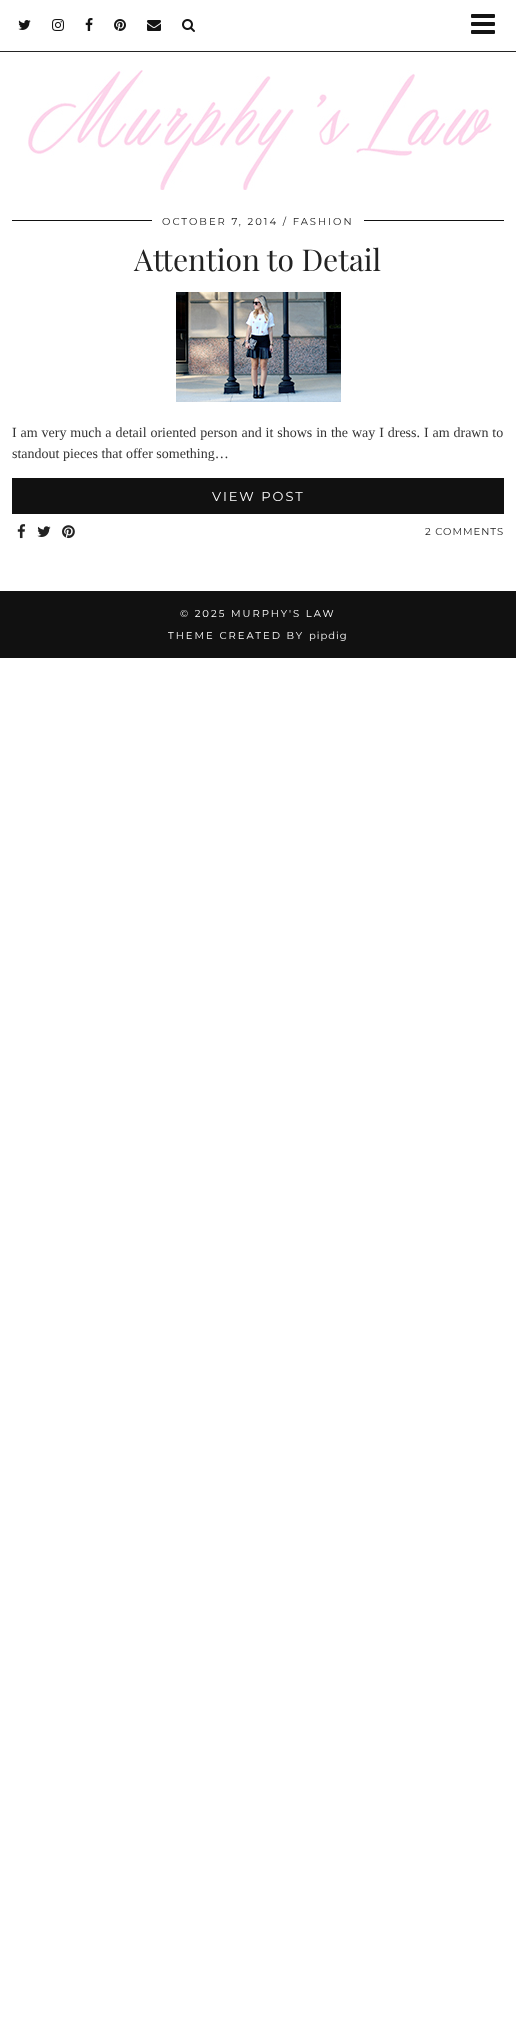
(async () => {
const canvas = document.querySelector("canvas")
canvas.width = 516
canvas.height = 2040
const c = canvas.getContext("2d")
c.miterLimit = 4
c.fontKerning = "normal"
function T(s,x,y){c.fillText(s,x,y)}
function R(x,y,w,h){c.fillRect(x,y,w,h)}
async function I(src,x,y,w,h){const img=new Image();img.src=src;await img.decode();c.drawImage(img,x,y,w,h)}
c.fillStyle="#fff"
R(0,0,516,2040)
c.fillStyle="#242424"
R(0,51,516,1)
await I("1.png",18,20,13,10)
await I("2.png",52,19,12,12)
await I("3.png",85,18,8,13)
await I("4.png",114,19,12,12)
await I("5.png",147,20,14,11)
await I("6.png",182,19,13,13)
await I("7.png",471,14,24,20)
await I("8.png",28,70,464,120)
c.fillStyle="#111"
R(12,220,492,1)
c.fillStyle="#fff"
R(152,220,126,1)
R(278,215,5,13)
R(283,220,81,1)
c.letterSpacing="2px"
c.font="100 10px Montserrat"
c.fillStyle="#222"
T("OCTOBER 7, 2014 / FASHION",162,225)
c.letterSpacing="0px"
c.font="30px Playfair Display"
T("Attention to Detail",134,271)
await I("9.png",176,292,165,110)
c.wordSpacing="0.4px"
c.font="14px Liberation Serif"
c.fillStyle="#333"
T("I am very much a detail oriented person and it shows in the way I dress. I am drawn to",12,437)
c.wordSpacing="0px"
T("standout pieces that offer something…",12,458)
c.fillStyle="#111"
R(12,478,492,36)
c.letterSpacing="2px"
c.font="100 13px Montserrat"
c.fillStyle="#fff"
T("VIEW POST",212,501)
await I("10.png",17,524,9,15)
await I("11.png",37,526,14,11)
await I("12.png",62,525,13,14)
c.letterSpacing="1px"
c.font="100 10px Montserrat"
c.fillStyle="#222"
T("2 COMMENTS",425,535)
c.fillStyle="#111"
R(0,591,516,67)
c.letterSpacing="2px"
c.fillStyle="#fff"
T("© 2025 MURPHY'S LAW",180,617)
T("THEME CREATED BY",168,639)
c.letterSpacing="1px"
T("pipdig",309,639)
})()
